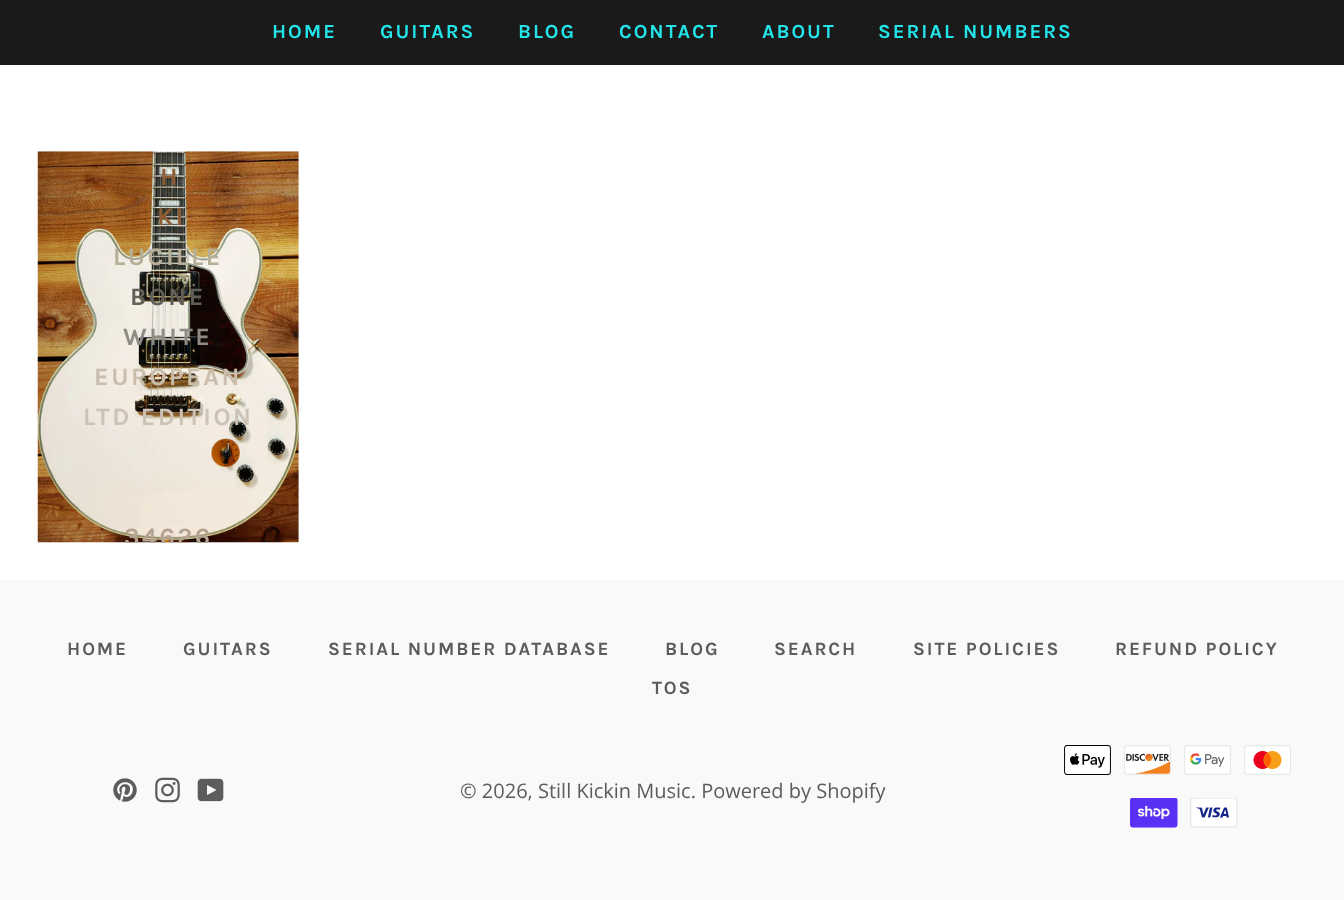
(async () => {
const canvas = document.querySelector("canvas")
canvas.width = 1344
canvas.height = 900
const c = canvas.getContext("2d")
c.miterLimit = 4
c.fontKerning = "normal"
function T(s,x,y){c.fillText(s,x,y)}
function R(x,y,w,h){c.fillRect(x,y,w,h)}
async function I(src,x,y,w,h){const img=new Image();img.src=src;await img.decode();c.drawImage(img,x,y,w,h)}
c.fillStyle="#fff"
R(0,0,1344,900)
c.fillStyle="#1a1a1a"
R(0,0,1344,65)
c.letterSpacing="2px"
c.font="bold 20px Karla"
c.fillStyle="#23e4e9"
T("HOME",272,38)
T("GUITARS",380,38)
T("BLOG",518,38)
T("CONTACT",619,38)
T("ABOUT",762,38)
T("SERIAL NUMBERS",878,38)
await I("1.png",37,151,262,392)
c.letterSpacing="2.5px"
c.font="bold 25px Karla"
c.fillStyle="#8e5d33"
T("H",160,185)
T("KI",157,225)
c.fillStyle="#b6ae97"
T("LUCILLE",113,265)
c.fillStyle="#625f56"
T("BONE",130,305)
c.fillStyle="#8f8b84"
T("WHITE",123,345)
c.fillStyle="#cabdab"
T("EUROPEAN",94,385)
c.fillStyle="#ccc2b5"
T("LTD EDITION",83,425)
c.save()
c.beginPath()
c.rect(38,151,261,392)
c.clip()
c.fillStyle="#b4a491"
T("34626",124,545)
c.restore()
c.fillStyle="#f9f9f9"
R(0,580,1344,320)
c.letterSpacing="1.9px"
c.font="bold 18.75px Karla"
c.fillStyle="#5c5c5c"
T("HOME",67,655)
T("GUITARS",183,655)
T("SERIAL NUMBER DATABASE",328,655)
T("BLOG",665,655)
T("SEARCH",774,655)
T("SITE POLICIES",913,655)
T("REFUND POLICY",1115,655)
T("TOS",652,694)
await I("2.png",113,778,24,24)
await I("3.png",155,777,25,26)
await I("4.png",197,778,27,24)
c.letterSpacing="0px"
c.font="20px Open Sans"
T("© 2026, Still Kickin Music. Powered by Shopify",460,798)
await I("5.png",1064,745,47,30)
await I("6.png",1124,745,47,30)
await I("7.png",1184,745,47,30)
await I("8.png",1244,745,47,30)
await I("9.png",1130,798,48,30)
await I("10.png",1190,798,48,30)
})()
